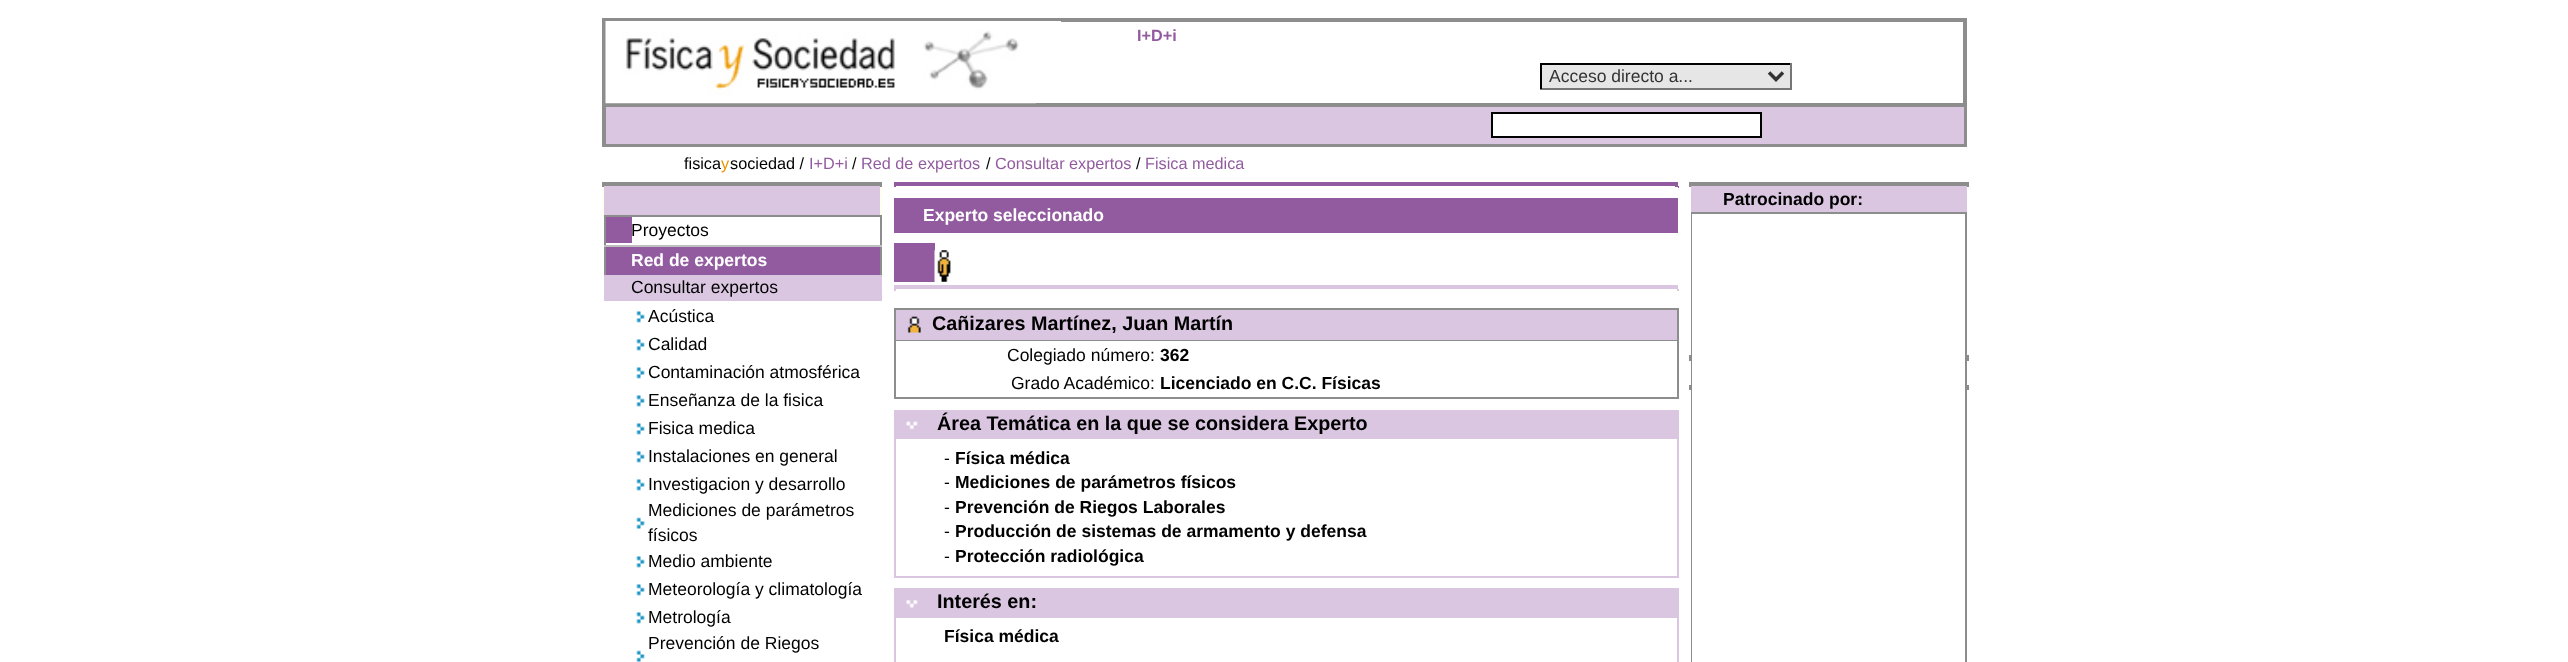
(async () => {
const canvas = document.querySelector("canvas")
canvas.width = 2568
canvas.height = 662
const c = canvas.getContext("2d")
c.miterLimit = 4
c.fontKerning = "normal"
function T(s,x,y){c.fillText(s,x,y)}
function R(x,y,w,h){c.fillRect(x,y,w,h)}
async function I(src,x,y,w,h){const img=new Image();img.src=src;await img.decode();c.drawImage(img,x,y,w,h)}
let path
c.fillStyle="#fff"
R(0,0,2568,662)
c.strokeStyle="#8d8d8d"
c.lineWidth=4
c.strokeRect(604,20,1361,125)
R(1036,21,25,1)
c.fillStyle="#8d8d8d"
R(606,103,1358,4)
await I("1.png",605,21,431,83)
c.font="bold 16.25px Liberation Sans"
c.fillStyle="#925b9f"
T("I+D+i",1137,41)
c.fillStyle="#e6e6e6"
R(1542,65,248,23)
c.fillStyle="#000"
R(1540,63,252,2)
c.fillStyle="#767676"
R(1790,63,2,26)
R(1540,88,252,2)
c.fillStyle="#000"
R(1540,63,2,26)
path = new Path2D("M1769 72.5l7 7l7-7")
c.strokeStyle="#333"
c.lineWidth=3.5
c.stroke(path)
c.font="17.5px Liberation Sans"
c.fillStyle="#333"
T("Acceso directo a...",1549,82)
c.fillStyle="#dac6e1"
R(606,107,1358,37)
c.fillStyle="#fff"
c.beginPath()
c.rect(1492,113,269,24)
c.fill()
c.strokeStyle="#000"
c.lineWidth=2
c.stroke()
c.font="16.25px Liberation Sans"
c.fillStyle="#000"
T("fisica",684,169)
c.fillStyle="#ec9400"
T("y",721,169)
c.fillStyle="#000"
T("sociedad /",730,169)
c.fillStyle="#925b9f"
T("I+D+i",809,169)
c.fillStyle="#000"
T("/",852,169)
c.fillStyle="#925b9f"
T("Red de expertos",861,169)
c.fillStyle="#000"
T("/",986,169)
c.fillStyle="#925b9f"
T("Consultar expertos",995,169)
c.fillStyle="#000"
T("/",1136,169)
c.fillStyle="#925b9f"
T("Fisica medica",1145,169)
c.fillStyle="#8d8d8d"
R(1689,182,280,4)
R(1689,186,2,1)
c.fillStyle="#dac6e1"
R(1691,186,276,26)
c.fillStyle="#8d8d8d"
R(1967,186,2,1)
c.font="bold 17.5px Liberation Sans"
c.fillStyle="#000"
T("Patrocinado por:",1723,205)
c.fillStyle="#8d8d8d"
R(1691,212,276,2)
R(1689,357,280,4)
R(1689,385,280,4)
R(1965,212,2,268)
R(1691,212,2,268)
c.fillStyle="#fff"
R(1692,214,273,266)
c.fillStyle="#8d8d8d"
R(1689,355,2,2)
R(1967,355,2,2)
R(1689,389,2,1)
R(1967,389,2,1)
R(1965,480,2,182)
R(1691,480,1,182)
R(602,182,280,4)
R(602,186,2,1)
c.fillStyle="#dac6e1"
R(604,186,276,29)
c.fillStyle="#8d8d8d"
R(880,186,2,1)
c.fillStyle="#fffff0"
R(602,187,2,30)
R(880,187,2,28)
c.fillStyle="#8d8d8d"
R(604,215,278,2)
c.fillStyle="#fffff0"
R(882,215,2,2)
c.fillStyle="#dac6e1"
R(604,275,278,26)
c.fillStyle="#8d8d8d"
R(604,217,2,28)
c.fillStyle="#925b9f"
R(606,217,26,26)
c.fillStyle="#8d8d8d"
R(880,217,2,28)
c.font="17.5px Liberation Sans"
c.fillStyle="#000"
T("Proyectos",631,236)
c.fillStyle="#bfbfbf"
R(604,245,278,2)
c.fillStyle="#925b9f"
R(606,247,274,28)
c.fillStyle="#8d8d8d"
R(604,247,2,28)
R(880,247,2,28)
c.font="bold 17.5px Liberation Sans"
c.fillStyle="#fff"
T("Red de expertos",631,266)
c.font="17.5px Liberation Sans"
c.fillStyle="#000"
T("Consultar expertos",631,293)
await I("2.png",636,311,9,12)
T("Acústica",648,322)
await I("2.png",636,339,9,12)
T("Calidad",648,350)
await I("2.png",636,367,9,12)
T("Contaminación atmosférica",648,378)
await I("2.png",636,395,9,12)
T("Enseñanza de la fisica",648,406)
await I("2.png",636,423,9,12)
T("Fisica medica",648,434)
await I("2.png",636,451,9,12)
T("Instalaciones en general",648,462)
await I("2.png",636,479,9,12)
T("Investigacion y desarrollo",648,490)
await I("3.png",636,517,9,12)
T("Mediciones de parámetros",648,516)
T("físicos",648,541)
await I("2.png",636,556,9,12)
T("Medio ambiente",648,567)
await I("2.png",636,584,9,12)
T("Meteorología y climatología",648,595)
await I("2.png",636,612,9,12)
T("Metrología",648,623)
T("Prevención de Riegos",648,649)
await I("3.png",636,650,9,12)
c.fillStyle="#925b9f"
R(894,182,784,4)
R(894,186,2,1)
R(1675,186,4,2)
c.fillStyle="#fff"
R(1675,187,3,1)
c.fillStyle="#925b9f"
R(894,198,784,35)
c.font="bold 17.5px Liberation Sans"
c.fillStyle="#fff"
T("Experto seleccionado",923,221)
c.fillStyle="#925b9f"
R(894,243,41,39)
await I("4.png",934,250,17,32)
c.fillStyle="#dac6e1"
R(894,285,784,4)
R(894,289,2,2)
R(1677,289,2,2)
R(896,310,781,30)
c.fillStyle="#8d8d8d"
R(894,308,784,2)
R(894,340,39,1)
R(894,308,2,33)
await I("5.png",907,316,14,17)
R(1677,308,2,91)
R(933,340,745,1)
c.font="bold 19.8px Liberation Sans"
c.fillStyle="#000"
T("Cañizares Martínez, Juan Martín",932,330)
c.fillStyle="#8d8d8d"
R(894,397,784,2)
R(894,341,2,58)
c.font="17.5px Liberation Sans"
c.fillStyle="#000"
T("Colegiado número:",1007,361)
c.font="bold 17.5px Liberation Sans"
T("362",1160,361)
c.font="17.5px Liberation Sans"
T("Grado Académico:",1011,389)
c.font="bold 17.5px Liberation Sans"
T("Licenciado en C.C. Físicas",1160,389)
c.fillStyle="#dac6e1"
R(894,410,785,29)
await I("6.png",906,421,12,9)
c.font="bold 19.8px Liberation Sans"
c.fillStyle="#000"
T("Área Temática en la que se considera Experto",937,430)
c.fillStyle="#dac6e1"
R(894,576,44,2)
R(894,439,2,139)
R(1677,439,2,139)
R(938,576,740,2)
c.font="17.5px Liberation Sans"
c.fillStyle="#000"
T("-",944,464)
c.font="bold 17.5px Liberation Sans"
T("Física médica",955,464)
c.font="17.5px Liberation Sans"
T("-",944,488)
c.font="bold 17.5px Liberation Sans"
T("Mediciones de parámetros físicos",955,488)
c.font="17.5px Liberation Sans"
T("-",944,513)
c.font="bold 17.5px Liberation Sans"
T("Prevención de Riegos Laborales",955,513)
c.font="17.5px Liberation Sans"
T("-",944,537)
c.font="bold 17.5px Liberation Sans"
T("Producción de sistemas de armamento y defensa",955,537)
c.font="17.5px Liberation Sans"
T("-",944,562)
c.font="bold 17.5px Liberation Sans"
T("Protección radiológica",955,562)
c.fillStyle="#dac6e1"
R(894,588,785,30)
await I("7.png",906,600,12,8)
c.font="bold 19.8px Liberation Sans"
c.fillStyle="#000"
T("Interés en:",937,608)
c.fillStyle="#dac6e1"
R(894,618,2,44)
R(1677,618,2,44)
c.font="bold 17.5px Liberation Sans"
c.fillStyle="#000"
T("Física médica",944,642)
})()
